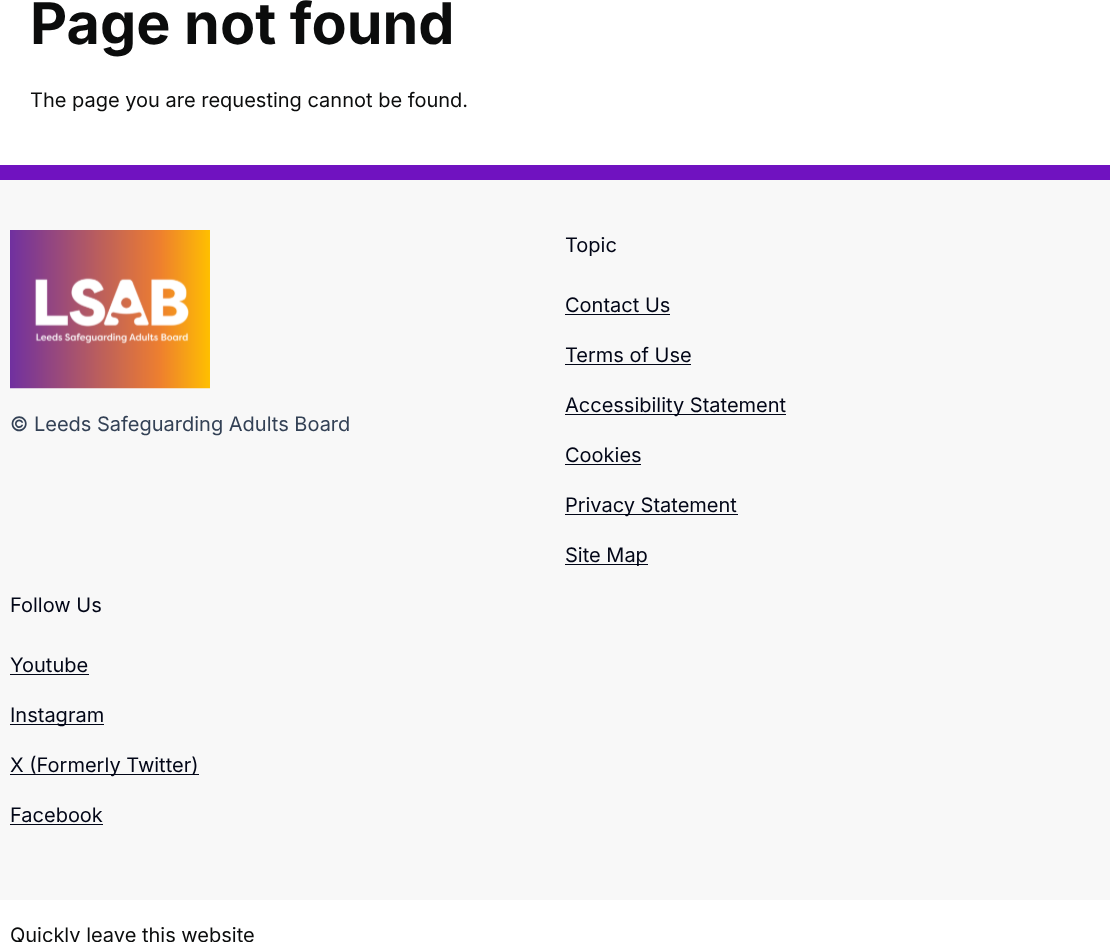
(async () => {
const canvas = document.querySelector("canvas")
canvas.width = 1110
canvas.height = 942
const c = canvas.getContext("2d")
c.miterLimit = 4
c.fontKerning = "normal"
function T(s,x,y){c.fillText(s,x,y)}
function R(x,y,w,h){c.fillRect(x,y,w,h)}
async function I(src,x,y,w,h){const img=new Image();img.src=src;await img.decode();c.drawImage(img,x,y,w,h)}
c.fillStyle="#fff"
R(0,0,1110,942)
c.font="bold 57.5px Inter"
c.fillStyle="#0b0c0c"
T("Page not found",30,44)
c.font="20px Inter"
T("The page you are requesting cannot be found.",30,107)
c.fillStyle="#f8f8f8"
R(0,180,1110,720)
c.fillStyle="#7012c0"
R(0,165,1110,15)
await I("1.png",10,230,200,159)
c.fillStyle="#334155"
T("© Leeds Safeguarding Adults Board",10,431)
c.fillStyle="#020617"
T("Topic",565,252)
T("Contact Us",565,312)
R(565,314,105,1)
T("Terms of Use",565,362)
R(565,364,126,1)
R(565,414,221,1)
T("Accessibility Statement",565,412)
T("Cookies",565,462)
R(565,464,76,1)
R(565,514,173,1)
T("Privacy Statement",565,512)
R(565,564,83,1)
T("Site Map",565,562)
T("Follow Us",10,612)
T("Youtube",10,672)
R(10,674,79,1)
R(10,724,94,1)
T("Instagram",10,722)
R(10,774,189,1)
T("X (Formerly Twitter)",10,772)
T("Facebook",10,822)
R(10,824,93,1)
c.fillStyle="#0b0c0c"
T("Quickly leave this website",10,942)
})()
